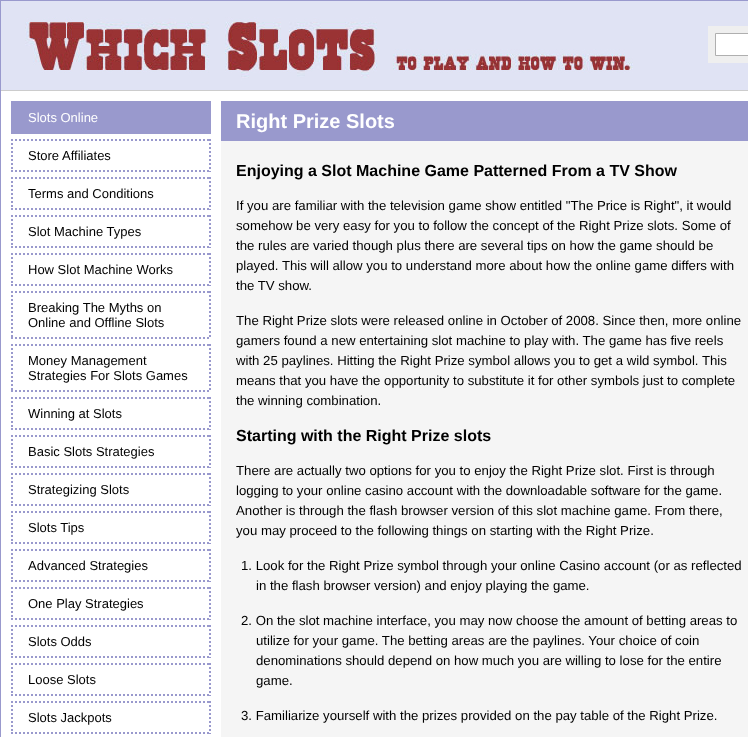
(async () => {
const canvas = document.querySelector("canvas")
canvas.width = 748
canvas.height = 737
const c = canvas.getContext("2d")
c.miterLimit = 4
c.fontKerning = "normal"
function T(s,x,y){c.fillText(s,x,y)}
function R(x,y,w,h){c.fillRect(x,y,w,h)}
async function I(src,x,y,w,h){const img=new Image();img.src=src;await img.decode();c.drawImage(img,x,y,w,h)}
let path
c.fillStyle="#fff"
R(0,0,748,737)
await I("1.png",1,1,747,90)
c.strokeStyle="#9999cd"
c.strokeRect(.5,.5,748,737)
c.fillStyle="#efefef"
R(708,26,40,37)
c.fillStyle="#fff"
c.beginPath()
c.rect(715.5,33.5,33,22)
c.fill()
c.strokeStyle="#afafaf"
c.stroke()
c.fillStyle="#9999cd"
R(11,101,200,33)
c.font="13px Liberation Sans"
c.fillStyle="#fff"
T("Slots Online",28,122)
path = new Path2D("M11 140h200")
c.strokeStyle="#9999cd"
c.lineWidth=2
c.setLineDash([2,2])
c.stroke(path)
path = new Path2D("M210 139v33")
c.stroke(path)
path = new Path2D("M11 171h200")
c.stroke(path)
path = new Path2D("M12 139v33")
c.stroke(path)
c.fillStyle="#000"
T("Store Affiliates",28,160)
path = new Path2D("M11 178h200")
c.stroke(path)
path = new Path2D("M210 177v33")
c.stroke(path)
path = new Path2D("M11 209h200")
c.stroke(path)
path = new Path2D("M12 177v33")
c.stroke(path)
T("Terms and Conditions",28,198)
path = new Path2D("M11 216h200")
c.stroke(path)
path = new Path2D("M210 215v33")
c.stroke(path)
path = new Path2D("M11 247h200")
c.stroke(path)
path = new Path2D("M12 215v33")
c.stroke(path)
T("Slot Machine Types",28,236)
path = new Path2D("M11 254h200")
c.stroke(path)
path = new Path2D("M210 253v33")
c.stroke(path)
path = new Path2D("M11 285h200")
c.stroke(path)
path = new Path2D("M12 253v33")
c.stroke(path)
T("How Slot Machine Works",28,274)
path = new Path2D("M11 292h200")
c.stroke(path)
path = new Path2D("M210 291v48")
c.stroke(path)
path = new Path2D("M11 338h200")
c.stroke(path)
path = new Path2D("M12 291v48")
c.stroke(path)
T("Breaking The Myths on",28,312)
T("Online and Offline Slots",28,327)
path = new Path2D("M11 345h200")
c.stroke(path)
path = new Path2D("M210 344v48")
c.stroke(path)
path = new Path2D("M11 391h200")
c.stroke(path)
path = new Path2D("M12 344v48")
c.stroke(path)
T("Money Management",28,365)
T("Strategies For Slots Games",28,380)
path = new Path2D("M11 398h200")
c.stroke(path)
path = new Path2D("M210 397v33")
c.stroke(path)
path = new Path2D("M11 429h200")
c.stroke(path)
path = new Path2D("M12 397v33")
c.stroke(path)
T("Winning at Slots",28,418)
path = new Path2D("M11 436h200")
c.stroke(path)
path = new Path2D("M210 435v33")
c.stroke(path)
path = new Path2D("M11 467h200")
c.stroke(path)
path = new Path2D("M12 435v33")
c.stroke(path)
T("Basic Slots Strategies",28,456)
path = new Path2D("M11 474h200")
c.stroke(path)
path = new Path2D("M210 473v33")
c.stroke(path)
path = new Path2D("M11 505h200")
c.stroke(path)
path = new Path2D("M12 473v33")
c.stroke(path)
T("Strategizing Slots",28,494)
path = new Path2D("M11 512h200")
c.stroke(path)
path = new Path2D("M210 511v33")
c.stroke(path)
path = new Path2D("M11 543h200")
c.stroke(path)
path = new Path2D("M12 511v33")
c.stroke(path)
T("Slots Tips",28,532)
path = new Path2D("M11 550h200")
c.stroke(path)
path = new Path2D("M210 549v33")
c.stroke(path)
path = new Path2D("M11 581h200")
c.stroke(path)
path = new Path2D("M12 549v33")
c.stroke(path)
T("Advanced Strategies",28,570)
path = new Path2D("M11 588h200")
c.stroke(path)
path = new Path2D("M210 587v33")
c.stroke(path)
path = new Path2D("M11 619h200")
c.stroke(path)
path = new Path2D("M12 587v33")
c.stroke(path)
T("One Play Strategies",28,608)
path = new Path2D("M11 626h200")
c.stroke(path)
path = new Path2D("M210 625v33")
c.stroke(path)
path = new Path2D("M11 657h200")
c.stroke(path)
path = new Path2D("M12 625v33")
c.stroke(path)
T("Slots Odds",28,646)
path = new Path2D("M11 664h200")
c.stroke(path)
path = new Path2D("M210 663v33")
c.stroke(path)
path = new Path2D("M11 695h200")
c.stroke(path)
path = new Path2D("M12 663v33")
c.stroke(path)
T("Loose Slots",28,684)
path = new Path2D("M11 702h200")
c.stroke(path)
path = new Path2D("M210 701v33")
c.stroke(path)
path = new Path2D("M11 733h200")
c.stroke(path)
path = new Path2D("M12 701v33")
c.stroke(path)
T("Slots Jackpots",28,722)
c.fillStyle="#9999cd"
R(221,101,527,40)
c.font="bold 20px Liberation Sans"
c.fillStyle="#fff"
T("Right Prize Slots",236,128)
c.fillStyle="#f5f5f5"
R(221,141,527,596)
c.font="bold 16px Liberation Sans"
c.fillStyle="#000"
T("Enjoying a Slot Machine Game Patterned From a TV Show",236,176)
c.font="13.2px Liberation Sans"
T("If you are familiar with the television game show entitled \"The Price is Right\", it would",236,210)
T("somehow be very easy for you to follow the concept of the Right Prize slots. Some of",236,230)
T("the rules are varied though plus there are several tips on how the game should be",236,250)
T("played. This will allow you to understand more about how the online game differs with",236,270)
T("the TV show.",236,290)
T("The Right Prize slots were released online in October of 2008. Since then, more online",236,325)
T("gamers found a new entertaining slot machine to play with. The game has five reels",236,345)
T("with 25 paylines. Hitting the Right Prize symbol allows you to get a wild symbol. This",236,365)
T("means that you have the opportunity to substitute it for other symbols just to complete",236,385)
T("the winning combination.",236,405)
c.font="bold 16px Liberation Sans"
T("Starting with the Right Prize slots",236,441)
c.font="13.2px Liberation Sans"
T("There are actually two options for you to enjoy the Right Prize slot. First is through",236,475)
T("logging to your online casino account with the downloadable software for the game.",236,495)
T("Another is through the flash browser version of this slot machine game. From there,",236,515)
T("you may proceed to the following things on starting with the Right Prize.",236,535)
T("1. Look for the Right Prize symbol through your online Casino account (or as reflected",241,570)
T("in the flash browser version) and enjoy playing the game.",256,590)
T("2. On the slot machine interface, you may now choose the amount of betting areas to",241,625)
T("utilize for your game. The betting areas are the paylines. Your choice of coin",256,645)
T("denominations should depend on how much you are willing to lose for the entire",256,665)
T("game.",256,685)
T("3. Familiarize yourself with the prizes provided on the pay table of the Right Prize.",241,720)
})()
